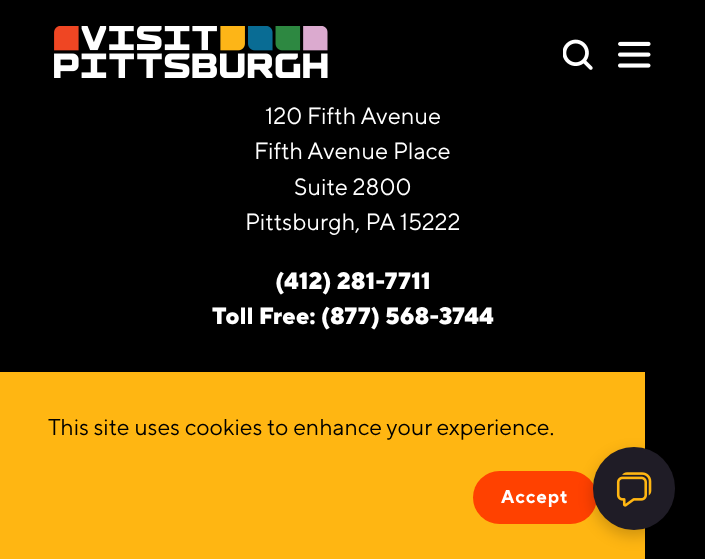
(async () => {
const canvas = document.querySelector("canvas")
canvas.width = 705
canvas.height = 559
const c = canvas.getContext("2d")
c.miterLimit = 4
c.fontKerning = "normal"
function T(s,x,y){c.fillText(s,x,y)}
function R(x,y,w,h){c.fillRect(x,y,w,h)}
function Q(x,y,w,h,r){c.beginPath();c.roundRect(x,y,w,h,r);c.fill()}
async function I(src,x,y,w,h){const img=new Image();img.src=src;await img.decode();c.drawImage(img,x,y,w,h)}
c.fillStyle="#000"
R(0,0,705,559)
c.fillStyle="#00000040"
c.filter="blur(7.5px)"
c.beginPath()
c.rect(0,0,705,105)
c.fill()
c.filter="none"
await I("1.png",54,26,274,52)
await I("2.png",563,39,30,31)
await I("3.png",618,41,33,27)
c.font="23.5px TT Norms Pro"
c.fillStyle="#fff"
T("120 Fifth Avenue",265,124)
T("Fifth Avenue Place",254,159)
T("Suite 2800",294,195)
T("Pittsburgh, PA 15222",245,230)
c.font="800 23.5px TT Norms Pro"
T("(412) 281-7711",275,289)
T("Toll Free: (877) 568-3744",212,324)
c.fillStyle="#ffb612"
R(0,372,645,187)
c.font="22.9px TT Norms Pro"
c.fillStyle="#000"
T("This site uses cookies to enhance your experience.",48,435)
c.fillStyle="#ff4100"
Q(473,471,124,53,26.5)
c.letterSpacing="1px"
c.font="bold 18.5px TT Norms Pro"
c.fillStyle="#fff"
T("Accept",501,503)
c.fillStyle="#00000033"
c.filter="blur(7.5px)"
c.beginPath()
c.roundRect(593,453,82,83,41)
c.fill()
c.filter="none"
c.fillStyle="#1f1c26"
Q(593,447,82,83,41)
await I("4.png",616,472,36,35)
})()
